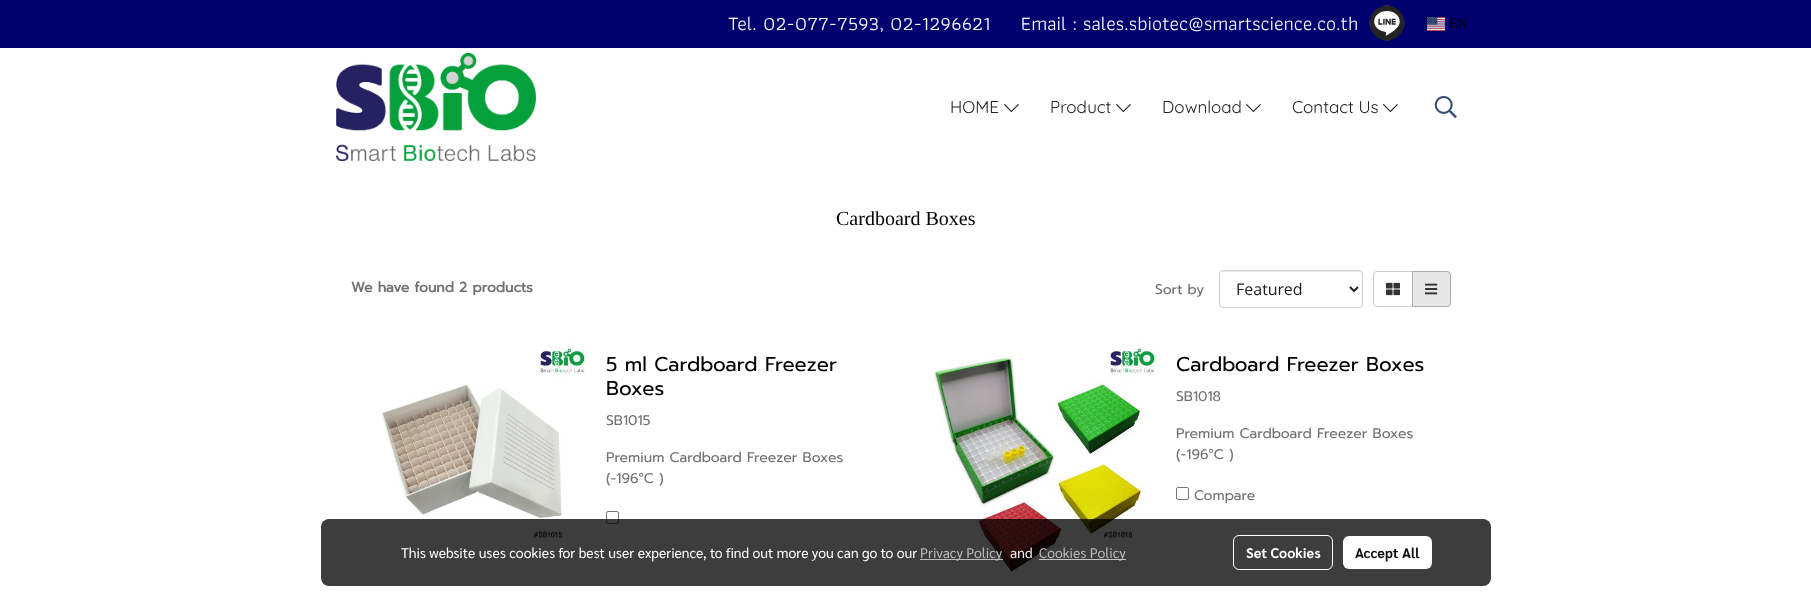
(async () => {
const canvas = document.querySelector("canvas")
canvas.width = 1811
canvas.height = 594
const c = canvas.getContext("2d")
c.miterLimit = 4
c.fontKerning = "normal"
function T(s,x,y){c.fillText(s,x,y)}
function R(x,y,w,h){c.fillRect(x,y,w,h)}
function Q(x,y,w,h,r){c.beginPath();c.roundRect(x,y,w,h,r);c.fill()}
async function I(src,x,y,w,h){const img=new Image();img.src=src;await img.decode();c.drawImage(img,x,y,w,h)}
let path
c.fillStyle="#fff"
R(0,0,1811,594)
c.fillStyle="#00006f"
R(0,0,1811,48)
c.font="20px Athiti"
c.fillStyle="#fff"
T("Tel. 02-077-7593, 02-1296621     Email : sales.sbiotec@smartscience.co.th",728,30)
c.fillStyle="#242424"
path = new Path2D("M1387 5.5c-9.5 0-17.5 8-17.5 17.5c0 9.5 8 17.5 17.5 17.5c9.5 0 17.5-8 17.5-17.5c0-9.5-8-17.5-17.5-17.5z")
c.fill(path)
await I("1.png",1369,5,36,36)
await I("2.png",1427,17,18,14)
c.font="14px Liberation Serif"
c.fillStyle="#000"
T("EN",1449,28)
await I("3.png",336,53,200,108)
c.font="300 17px Quicksand"
c.fillStyle="#212121"
T("HOME",950,113)
await I("4.png",1004,104,15,8)
T("Product",1050,113)
await I("4.png",1116,104,15,8)
T("Download",1162,113)
await I("4.png",1246,104,15,8)
T("Contact Us",1292,113)
await I("4.png",1383,104,15,8)
await I("5.png",1434,96,23,22)
c.font="20px Liberation Serif"
c.fillStyle="#000"
T("Cardboard Boxes",836,225)
c.font="bold 14px Prompt"
c.fillStyle="#717171"
T("We have found 2 products",351,292)
c.font="14px Prompt"
T("Sort by",1155,294)
c.fillStyle="#ececec"
path = new Path2D("M1223 272h136c2 0 3 1 3 3v-1c0-2-1-3-3-3h-136c-2 0-3 1-3 3v1c0-2 1-3 3-3z")
c.fill(path)
c.beginPath()
c.roundRect(1219.5,270.5,143,37,3.5)
c.strokeStyle="#cdced2"
c.stroke()
path = new Path2D("M1350 287l4 4l4-4")
c.strokeStyle="#212121"
c.lineWidth=2
c.stroke(path)
c.font="16px Open Sans"
c.fillStyle="#212121"
T("Featured",1236,295)
c.beginPath()
c.roundRect(1373.5,271.5,39,35,[3.5,0,0,3.5])
c.strokeStyle="#ccc"
c.lineWidth=1
c.stroke()
await I("6.png",1386,282,14,14)
c.fillStyle="#e6e6e6"
c.beginPath()
c.roundRect(1412.5,271.5,38,35,[0,3.5,3.5,0])
c.fill()
c.strokeStyle="#adadad"
c.stroke()
await I("7.png",1425,283,13,12)
await I("8.png",381,342,205,197)
c.font="20px Prompt"
c.fillStyle="#000"
T("5 ml Cardboard Freezer",606,371)
T("Boxes",606,395)
c.font="14px Prompt"
c.fillStyle="#717171"
T("SB1015",606,425)
T("Premium Cardboard Freezer Boxes",606,462)
T("(-196°C )",606,483)
c.beginPath()
c.roundRect(606.5,511.5,12,12,1.5)
c.strokeStyle="#767676"
c.stroke()
await I("9.png",930,342,226,230)
c.font="20px Prompt"
c.fillStyle="#000"
T("Cardboard Freezer Boxes",1176,371)
c.font="14px Prompt"
c.fillStyle="#717171"
T("SB1018",1176,401)
T("Premium Cardboard Freezer Boxes",1176,438)
T("(-196°C )",1176,459)
c.beginPath()
c.roundRect(1176.5,487.5,12,12,1.5)
c.stroke()
T("Compare",1194,500)
c.fillStyle="#000000c2"
Q(321,519,1170,67,8)
c.font="14px Sarabun"
c.fillStyle="#fff"
T("This website uses cookies for best user experience, to find out more you can go to our",401,558)
c.fillStyle="#c2c2c2f2"
R(920,559,83,1)
c.fillStyle="#bbb"
T("Privacy Policy",920,558)
c.fillStyle="#f3f3f3"
T("and",1010,558)
c.fillStyle="#c5c5c5"
R(1039,559,87,1)
c.fillStyle="#bbb"
T("Cookies Policy",1039,558)
c.beginPath()
c.roundRect(1233.5,535.5,99,34,5.5)
c.strokeStyle="#fff"
c.stroke()
c.font="bold 14px Sarabun"
c.fillStyle="#fff"
T("Set Cookies",1246,558)
Q(1343,536,89,33,6)
c.fillStyle="#0d0d0d"
T("Accept All",1355,558)
})()
